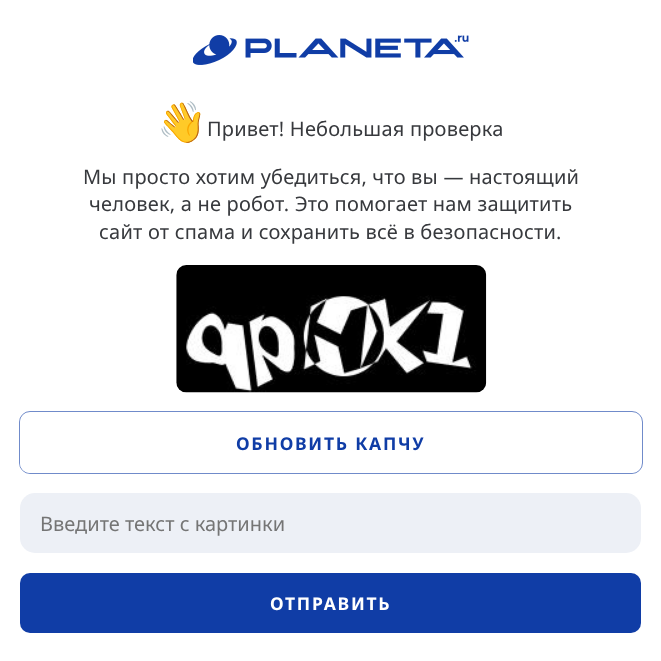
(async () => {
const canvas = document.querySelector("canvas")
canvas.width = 661
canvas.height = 661
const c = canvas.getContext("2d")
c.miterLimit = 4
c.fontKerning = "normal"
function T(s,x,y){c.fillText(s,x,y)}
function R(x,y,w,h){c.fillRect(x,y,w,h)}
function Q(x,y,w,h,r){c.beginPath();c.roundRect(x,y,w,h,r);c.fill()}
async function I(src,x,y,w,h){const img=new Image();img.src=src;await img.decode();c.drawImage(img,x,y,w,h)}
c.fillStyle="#fff"
R(0,0,661,661)
await I("1.png",193,35,276,30)
c.letterSpacing="0.2px"
c.font="40px Noto Color Emoji"
c.fillStyle="#37393d"
T("👋",157,136)
c.font="20px Noto Sans"
T("Привет! Небольшая проверка",207,136)
T("Мы просто хотим убедиться, что вы — настоящий",83,184)
T("человек, а не робот. Это помогает нам защитить",89,211)
T("сайт от спама и сохранить всё в безопасности.",99,239)
await I("2.png",176,265,311,128)
c.beginPath()
c.roundRect(19.5,411.5,623,62,10.5)
c.strokeStyle="#708bca"
c.stroke()
c.fillStyle="#fff"
Q(20,413,621,60,10)
c.letterSpacing="1.75px"
c.font="bold 17.5px Noto Sans"
c.fillStyle="#103da6"
T("ОБНОВИТЬ КАПЧУ",236,450)
c.fillStyle="#edf0f6"
Q(20,493,621,60,15)
c.letterSpacing="0px"
c.font="20px Noto Sans"
c.fillStyle="#757575"
T("Введите текст с картинки",40,531)
c.fillStyle="#103da6"
Q(20,573,621,60,10)
c.letterSpacing="1.75px"
c.font="bold 17.5px Noto Sans"
c.fillStyle="#fff"
T("ОТПРАВИТЬ",270,610)
})()
